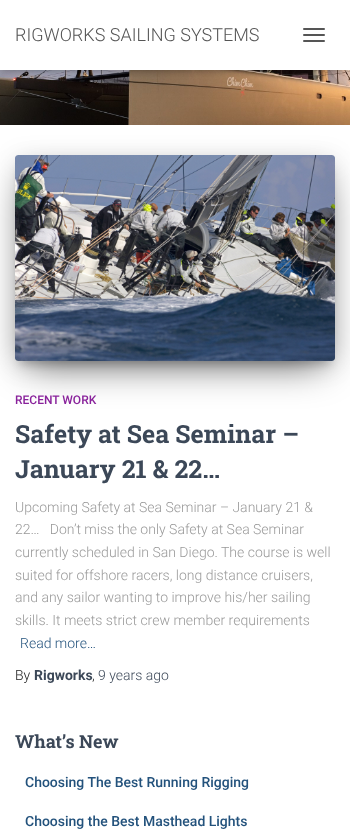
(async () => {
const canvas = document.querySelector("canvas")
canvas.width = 350
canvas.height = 832
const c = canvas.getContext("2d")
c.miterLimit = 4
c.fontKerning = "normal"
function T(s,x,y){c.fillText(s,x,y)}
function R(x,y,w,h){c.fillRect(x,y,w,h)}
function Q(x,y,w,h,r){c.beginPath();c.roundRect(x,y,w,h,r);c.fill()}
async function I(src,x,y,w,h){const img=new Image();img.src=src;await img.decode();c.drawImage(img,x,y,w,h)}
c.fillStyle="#fff"
R(0,0,350,832)
await I("1.png",0,70,350,55)
c.fillStyle="#0000001a"
c.filter="blur(2.5px)"
c.beginPath()
c.rect(2,6,346,66)
c.fill()
c.filter="none"
c.fillStyle="#0000001f"
c.filter="blur(5px)"
c.beginPath()
c.rect(0,1,350,70)
c.fill()
c.filter="none"
c.fillStyle="#0000006b"
c.filter="blur(5px)"
c.beginPath()
c.rect(6,7,338,58)
c.fill()
c.filter="none"
c.fillStyle="#fff"
R(0,0,350,70)
c.font="300 18px Roboto"
c.fillStyle="#555"
T("RIGWORKS SAILING SYSTEMS",15,41)
Q(303,28,22,2,1)
Q(303,34,22,2,1)
Q(303,40,22,2,1)
c.fillStyle="#0000001f"
c.filter="blur(15px)"
c.beginPath()
c.rect(-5,126,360,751)
c.fill()
c.filter="none"
c.fillStyle="#fff"
R(0,125,350,707)
c.fillStyle="#00000033"
c.filter="blur(5px)"
c.beginPath()
c.rect(20,168,310,196)
c.fill()
c.filter="none"
c.fillStyle="#0000001f"
c.filter="blur(12.5px)"
c.beginPath()
c.roundRect(15,159,320,206,3)
c.fill()
c.filter="none"
c.fillStyle="#0000008f"
c.filter="blur(19px)"
c.beginPath()
c.rect(27,183,296,182)
c.fill()
c.filter="none"
await I("2.png",15,155,320,206)
c.font="500 12px Roboto"
c.fillStyle="#89229b"
T("RECENT WORK",15,404)
c.font="bold 25px Roboto Slab"
c.fillStyle="#3c4858"
T("Safety at Sea Seminar –",15,443)
T("January 21 & 22…",15,478)
c.font="300 14px Roboto"
c.fillStyle="#999"
T("Upcoming Safety at Sea Seminar – January 21 &",15,512)
T("22…   Don’t miss the only Safety at Sea Seminar",15,534)
T("currently scheduled in San Diego. The course is well",15,557)
T("suited for offshore racers, long distance cruisers,",15,580)
T("and any sailor wanting to improve his/her sailing",15,602)
T("skills. It meets strict crew member requirements",15,625)
c.fillStyle="#23527c"
T("Read more…",20,648)
c.fillStyle="#212121"
T("By",15,680)
c.font="bold 14px Roboto"
c.fillStyle="#3c4858"
T("Rigworks",34,680)
c.font="300 14px Roboto"
c.fillStyle="#212121"
T(",",92,680)
c.fillStyle="#3c4858"
T("9 years ago",98,680)
c.font="bold 18px Roboto Slab"
T("What’s New",15,748)
c.font="500 14px Roboto"
c.fillStyle="#23527c"
T("Choosing The Best Running Rigging",25,787)
T("Choosing the Best Masthead Lights",25,826)
})()
